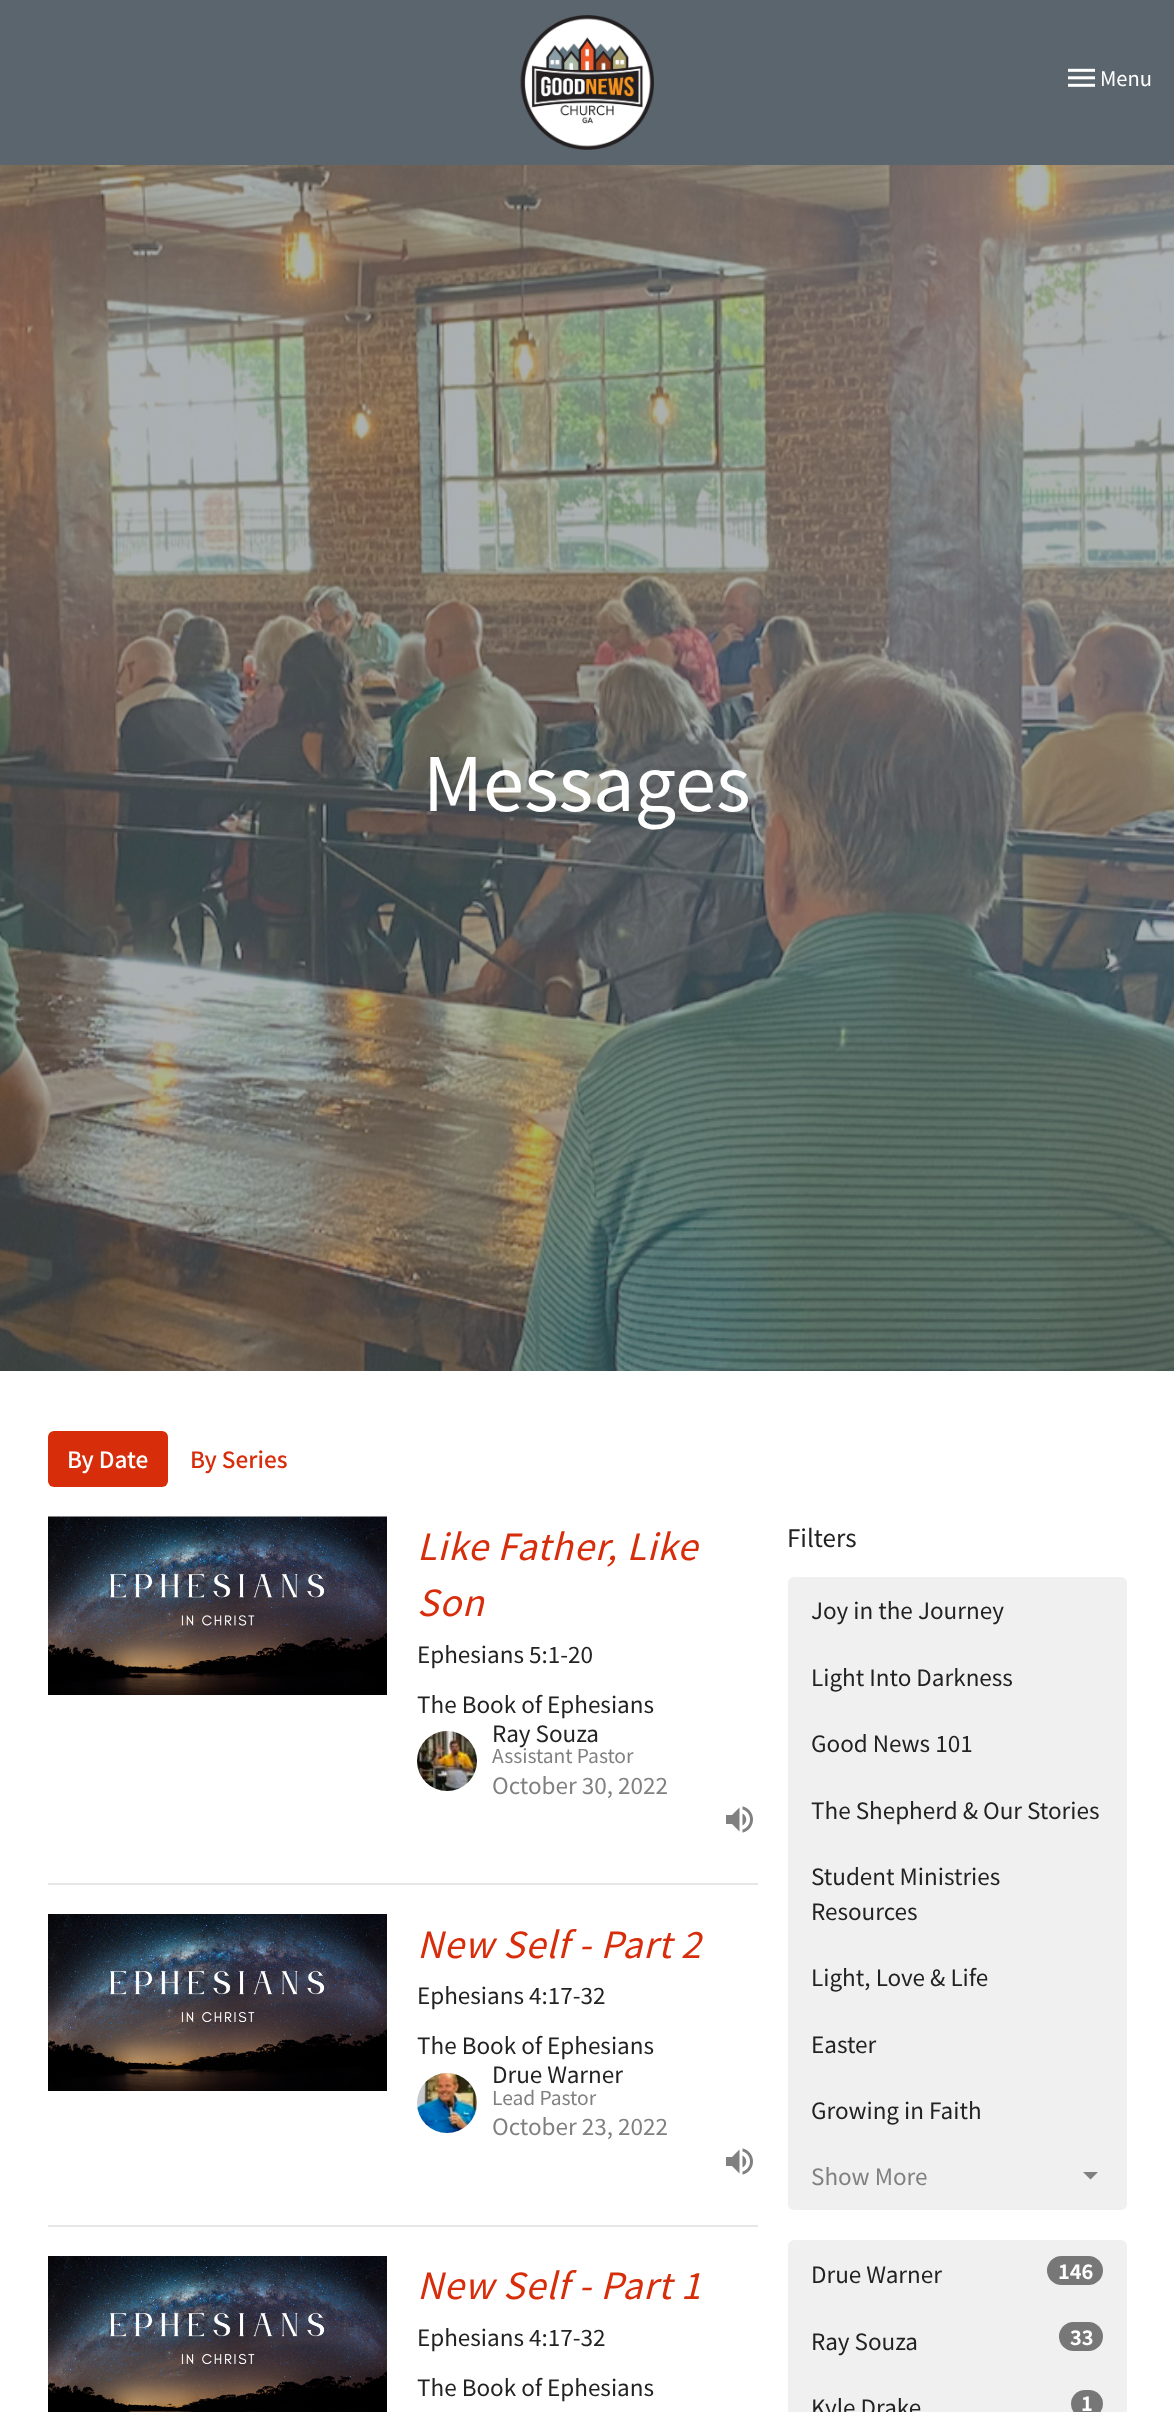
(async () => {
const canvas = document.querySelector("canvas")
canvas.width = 1174
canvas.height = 2412
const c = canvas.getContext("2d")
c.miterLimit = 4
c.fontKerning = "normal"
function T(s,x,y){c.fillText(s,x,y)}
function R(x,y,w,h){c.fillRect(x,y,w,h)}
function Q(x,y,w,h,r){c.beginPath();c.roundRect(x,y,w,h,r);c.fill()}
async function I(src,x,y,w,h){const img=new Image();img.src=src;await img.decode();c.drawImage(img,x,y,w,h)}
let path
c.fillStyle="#fff"
R(0,0,1174,2412)
c.fillStyle="#5a656e"
R(0,0,1174,165)
await I("1.png",520,15,134,135)
await I("2.png",1068,68,27,19)
c.font="22.5px Source Sans Pro"
c.fillStyle="#fff"
T("Menu",1100,86)
await I("3.png",0,165,1174,1206)
c.font="82.5px Source Sans Pro"
T("Messages",423,811)
c.fillStyle="#d82d0b"
Q(48,1431,120,56,6)
c.font="500 22.5px Noto Sans JP"
c.fillStyle="#fff"
T("By Date",67,1468)
c.fillStyle="#d82d0b"
T("By Series",190,1468)
c.fillStyle="#e6e6e6"
R(48,1883,710,2)
await I("4.png",48,1516,339,179)
c.letterSpacing="0.75px"
c.font="italic 36px Noto Sans JP"
c.fillStyle="#d82d0b"
T("Like Father, Like",417,1560)
T("Son",417,1616)
c.letterSpacing="0px"
c.font="22.5px Noto Sans JP"
c.fillStyle="#222"
T("Ephesians 5:1-20",417,1663)
T("The Book of Ephesians",417,1713)
await I("5.png",417,1731,60,60)
T("Ray Souza",492,1742)
c.font="19.25px Noto Sans JP"
c.fillStyle="#808080"
T("Assistant Pastor",492,1763)
c.font="22.5px Noto Sans JP"
T("October 30, 2022",492,1794)
await I("6.png",726,1806,27,27)
c.fillStyle="#e6e6e6"
R(48,2225,710,2)
await I("7.png",48,1914,339,177)
c.letterSpacing="0.75px"
c.font="italic 36px Noto Sans JP"
c.fillStyle="#d82d0b"
T("New Self - Part 2",417,1958)
c.letterSpacing="0px"
c.font="22.5px Noto Sans JP"
c.fillStyle="#222"
T("Ephesians 4:17-32",417,2004)
T("The Book of Ephesians",417,2054)
await I("8.png",417,2073,60,60)
T("Drue Warner",492,2083)
c.font="19.25px Noto Sans JP"
c.fillStyle="#808080"
T("Lead Pastor",492,2105)
c.font="22.5px Noto Sans JP"
T("October 23, 2022",492,2135)
await I("6.png",726,2148,27,27)
await I("9.png",48,2256,339,156)
c.letterSpacing="0.75px"
c.font="italic 36px Noto Sans JP"
c.fillStyle="#d82d0b"
T("New Self - Part 1",417,2299)
c.letterSpacing="0px"
c.font="22.5px Noto Sans JP"
c.fillStyle="#222"
T("Ephesians 4:17-32",417,2346)
T("The Book of Ephesians",417,2396)
c.font="27px Source Sans Pro"
T("Filters",787,1547)
c.fillStyle="#f0f0f0"
c.beginPath()
c.roundRect(788,1577,339,67,[6,6,0,0])
c.fill()
c.font="22.5px Noto Sans JP"
c.fillStyle="#222"
T("Joy in the Journey",811,1619)
c.fillStyle="#f0f0f0"
R(788,1644,339,498)
c.fillStyle="#222"
T("Light Into Darkness",811,1686)
T("Good News 101",811,1752)
T("The Shepherd & Our Stories",811,1819)
T("Student Ministries",811,1885)
T("Resources",811,1920)
T("Light, Love & Life",811,1986)
T("Easter",811,2053)
T("Growing in Faith",811,2119)
c.fillStyle="#f0f0f0"
c.beginPath()
c.roundRect(788,2142,339,68,[0,0,6,6])
c.fill()
c.fillStyle="#808080"
T("Show More",811,2185)
path = new Path2D("M1083 2172l7.5 7.5l7.5-7.5z")
c.fill(path)
c.fillStyle="#f0f0f0"
c.beginPath()
c.roundRect(788,2240,339,67,[6,6,0,0])
c.fill()
c.fillStyle="#222"
T("Drue Warner",811,2283)
c.fillStyle="#777"
Q(1047,2256,56,29,14.5)
c.font="bold 20px Noto Sans JP"
c.fillStyle="#fff"
T("146",1058,2279)
c.fillStyle="#f0f0f0"
R(788,2307,339,105)
c.font="22.5px Noto Sans JP"
c.fillStyle="#222"
T("Ray Souza",811,2350)
c.fillStyle="#777"
Q(1059,2322,44,29,14.5)
c.font="bold 20px Noto Sans JP"
c.fillStyle="#fff"
T("33",1070,2345)
c.font="22.5px Noto Sans JP"
c.fillStyle="#222"
T("Kyle Drake",811,2416)
c.fillStyle="#777"
Q(1071,2390,32,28,14)
c.font="bold 20px Noto Sans JP"
c.fillStyle="#fff"
T("1",1081,2411)
})()
